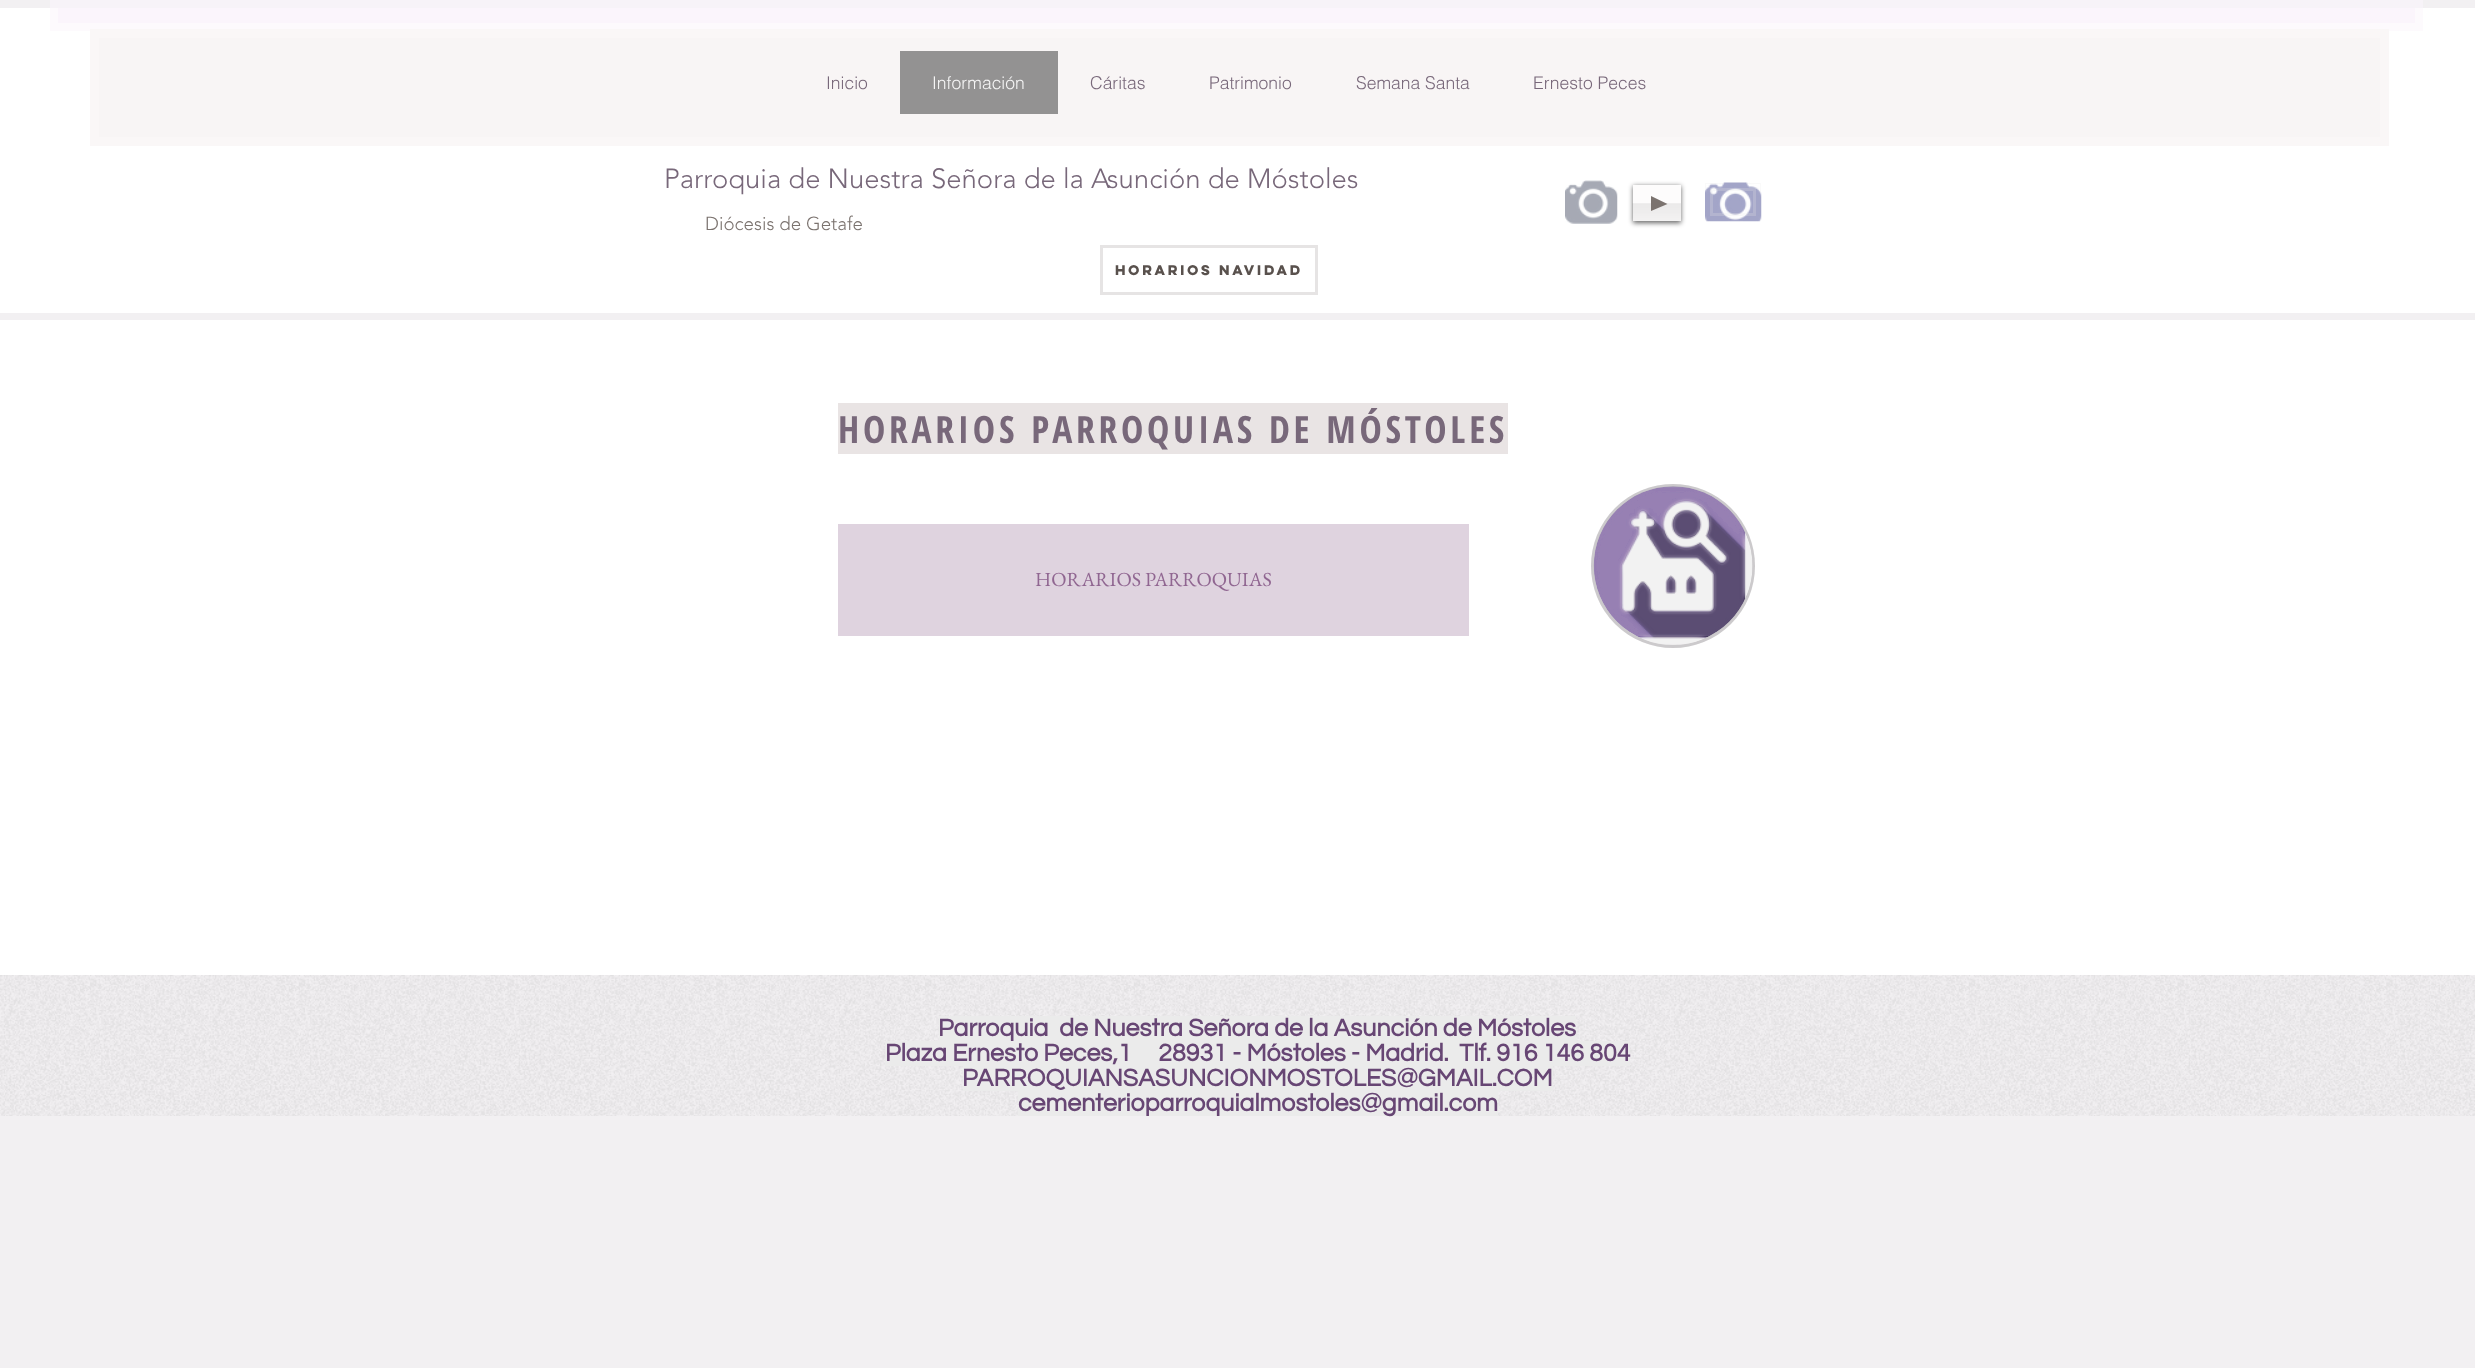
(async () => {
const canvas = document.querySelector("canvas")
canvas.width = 2475
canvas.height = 1368
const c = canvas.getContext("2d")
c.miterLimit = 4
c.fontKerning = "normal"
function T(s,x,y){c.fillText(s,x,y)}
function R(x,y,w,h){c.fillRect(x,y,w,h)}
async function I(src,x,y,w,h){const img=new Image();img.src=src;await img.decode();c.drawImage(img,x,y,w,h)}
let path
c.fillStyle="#f2f0f2"
R(0,0,2475,1368)
c.fillStyle="#f0e9f1"
R(50,0,2373,8)
c.fillStyle="#fff"
R(0,8,2475,305)
c.fillStyle="#fbf5fc"
R(50,8,2373,23)
c.strokeStyle="#ffffff78"
c.lineWidth=8
c.strokeRect(54,4,2365,23)
c.fillStyle="#f8f5f5f7"
c.beginPath()
c.rect(94.5,33.5,2290,108)
c.fill()
c.strokeStyle="#faf7f7"
c.lineWidth=9
c.stroke()
c.font="300 17.5px helvetica"
c.fillStyle="#78687a"
T("Inicio",826,89)
c.fillStyle="#939292"
R(900,51,158,63)
c.fillStyle="#f5f5f5"
T("Información",932,89)
c.fillStyle="#78687a"
T("Cáritas",1090,89)
T("Patrimonio",1209,89)
T("Semana Santa",1356,89)
T("Ernesto Peces",1533,89)
c.font="300 27.5px 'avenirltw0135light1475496'"
T("Parroquia de Nuestra Señora de la Asunción de Móstoles",664,188)
c.fillStyle="#00000099"
c.filter="blur(2.5px)"
c.beginPath()
c.rect(1633,186,48,37)
c.fill()
c.filter="none"
c.fillStyle="#fdfcfc"
R(1633,185,48,36)
await I("1.png",1632,203,49,18)
c.fillStyle="#7b736f"
path = new Path2D("M1651 211v-15l16.5 8z")
c.fill(path)
c.font="300 18.75px 'avenirltw0135light1475496'"
T("Diócesis de Getafe",705,230)
await I("2.png",1565,180,53,44)
c.strokeStyle="#fafafa"
c.lineWidth=1
c.strokeRect(1705.5,183.5,55,37)
await I("3.png",1705,182,57,40)
c.strokeStyle="#ebebeb3b"
c.lineWidth=3
c.strokeRect(1711.5,189.5,43,25)
c.strokeStyle="#e6e4e4"
c.strokeRect(1101.5,246.5,215,47)
c.font="bold 12.5px 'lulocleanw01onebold'"
c.fillStyle="#59514d"
T("HORARIOS NAVIDAD",1115,275)
c.fillStyle="#fff"
R(0,320,2475,655)
c.fillStyle="#e9e4e4"
R(838,403,670,51)
c.letterSpacing="3.75px"
c.font="bold 37.5px Open Sans Condensed"
c.fillStyle="#78687a"
T("HORARIOS PARROQUIAS DE MÓSTOLES",838,443)
c.fillStyle="#dfd3df"
R(838,524,631,112)
c.letterSpacing="0px"
c.font="20px EB Garamond"
c.fillStyle="#906691"
T("HORARIOS PARROQUIAS",1035,586)
c.fillStyle="#e4e3e4"
c.beginPath()
c.arc(1673,566,82,0,7)
c.fill()
c.beginPath()
c.arc(1673,566,80.5,0,7)
c.strokeStyle="#2e282f21"
c.stroke()
await I("4.png",1593,486,160,159)
await I("5.png",0,975,2475,141)
c.fillStyle="#ebebeb"
R(939,1016,637,25)
c.font="bold 25px Questrial"
c.fillStyle="#674674"
T("Parroquia  de Nuestra Señora de la Asunción de Móstoles",938,1036)
c.fillStyle="#ebebeb"
R(885,1041,745,25)
c.fillStyle="#674674"
T("Plaza Ernesto Peces,1     28931 - Móstoles - Madrid.  Tlf. 916 146 804",885,1061)
c.fillStyle="#ebebeb"
R(963,1066,590,25)
c.fillStyle="#674674"
T("PARROQUIANSASUNCIONMOSTOLES@GMAIL.COM",962,1086)
c.fillStyle="#ebebeb"
R(1018,1091,480,25)
c.fillStyle="#674674"
T("cementerioparroquialmostoles@gmail.com",1018,1111)
})()
